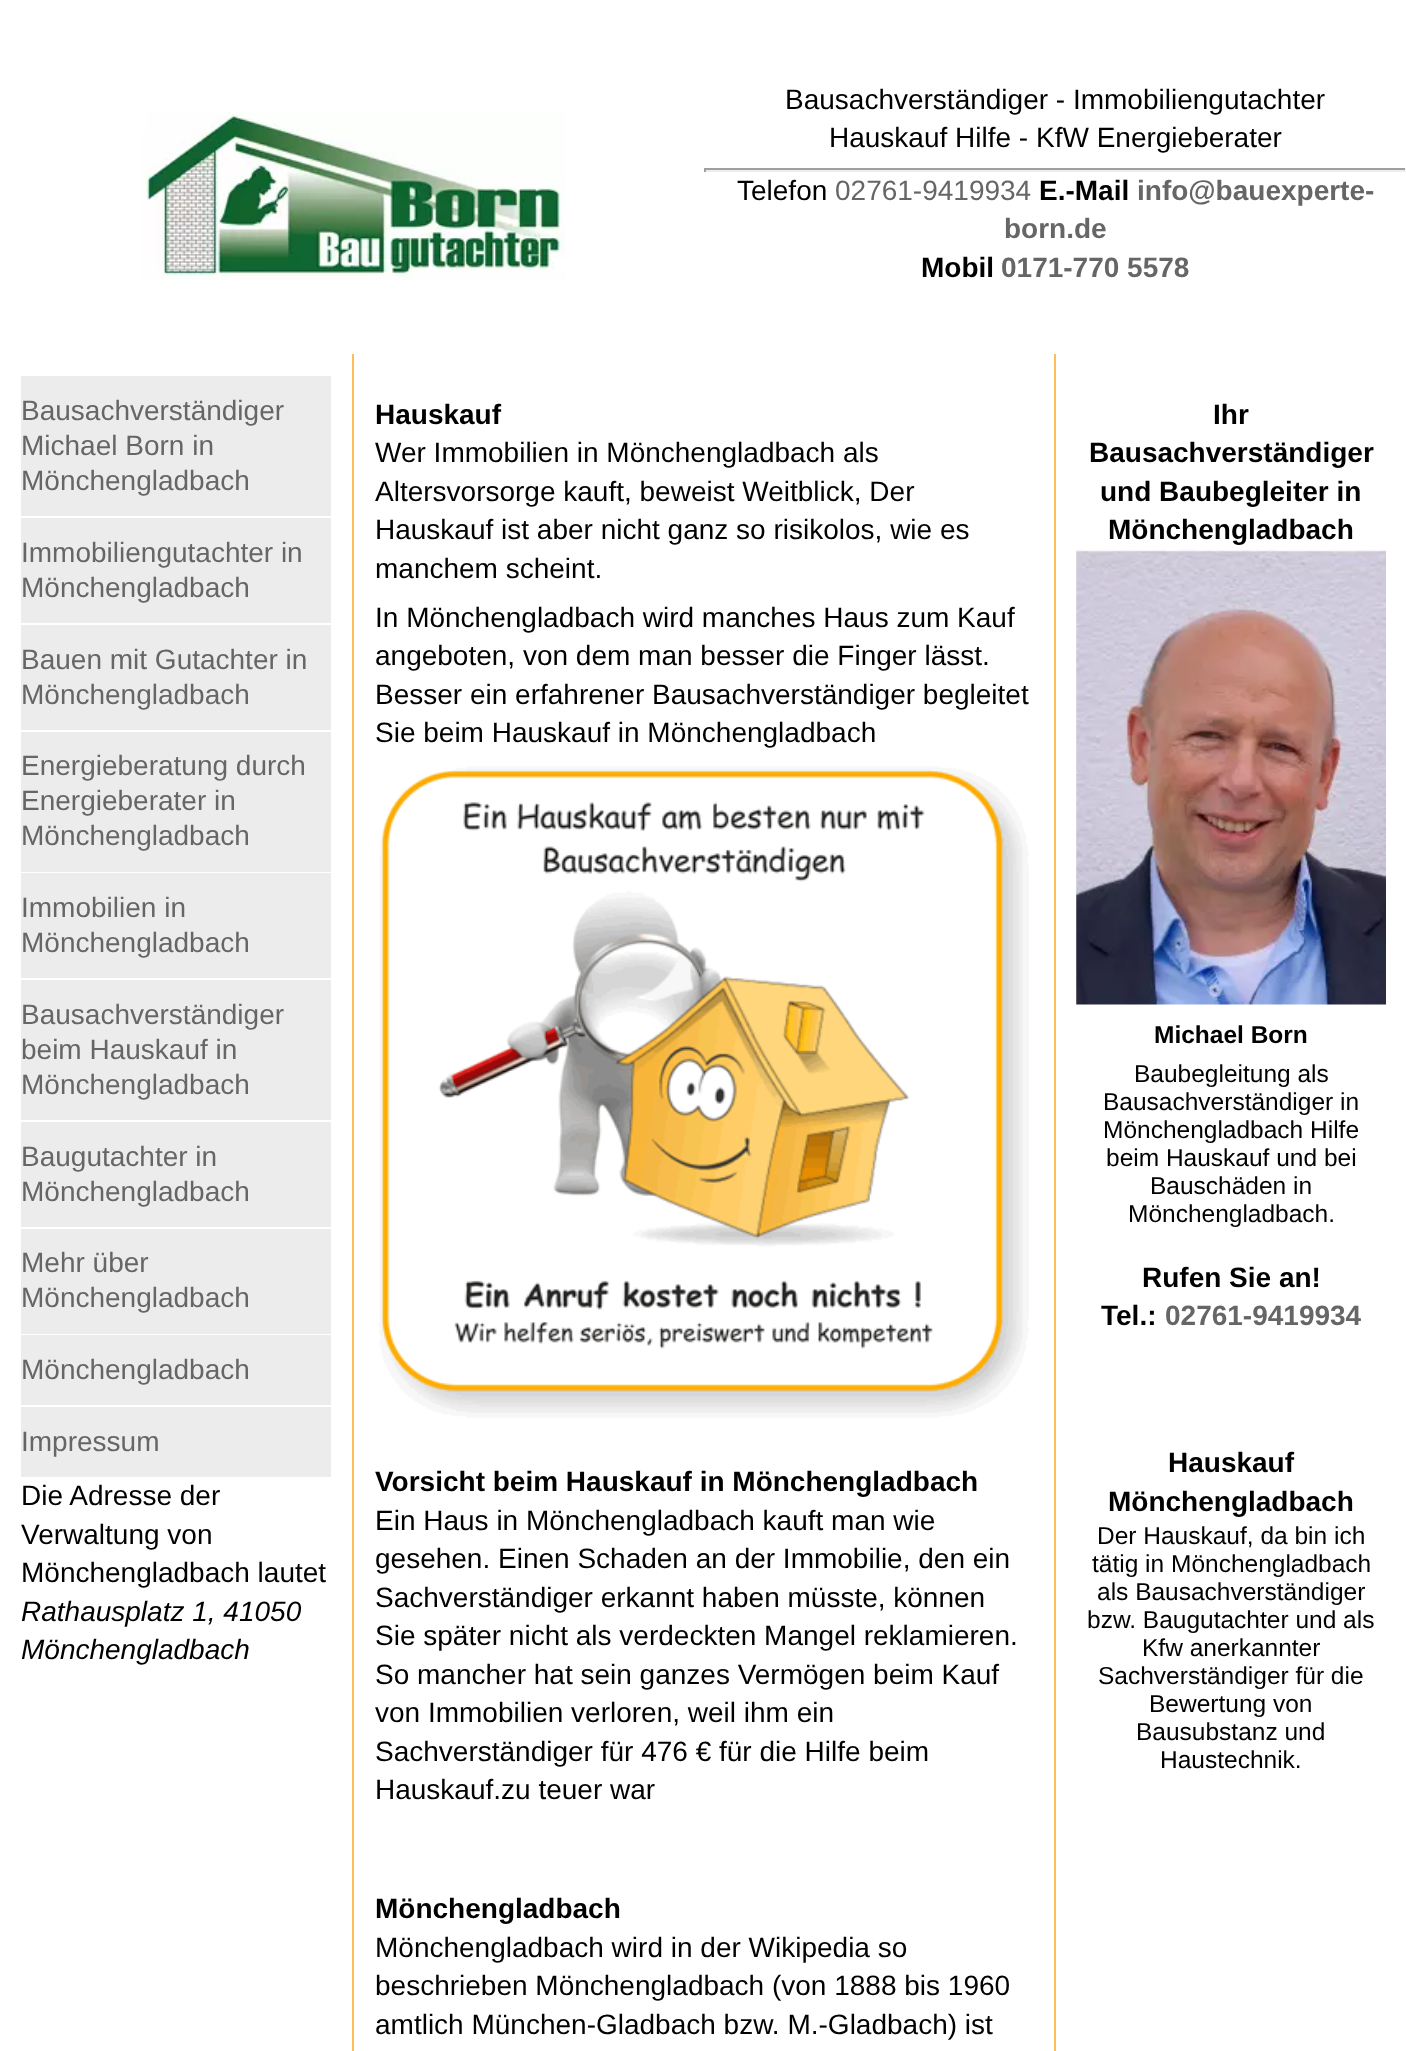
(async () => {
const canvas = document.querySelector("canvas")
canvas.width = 1406
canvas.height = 2051
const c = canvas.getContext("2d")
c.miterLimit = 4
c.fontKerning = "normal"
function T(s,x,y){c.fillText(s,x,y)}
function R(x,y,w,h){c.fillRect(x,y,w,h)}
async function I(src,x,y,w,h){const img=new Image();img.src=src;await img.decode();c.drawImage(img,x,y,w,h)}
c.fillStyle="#fff"
R(0,0,1406,2051)
await I("1.png",142,112,423,168)
c.font="28px Liberation Sans"
c.fillStyle="#000"
T("Bausachverständiger - Immobiliengutachter",785,109)
T("Hauskauf Hilfe - KfW Energieberater",829,147)
c.fillStyle="#9f9f9f"
R(704,168,702,2)
c.fillStyle="#eee"
R(1405,168,1,4)
R(704,170,702,2)
c.fillStyle="#9f9f9f"
R(704,168,2,4)
c.fillStyle="#000"
T("Telefon",737,200)
c.fillStyle="#666"
T("02761-9419934",835,200)
c.font="bold 28px Liberation Sans"
c.fillStyle="#000"
T("E.-Mail",1039,200)
c.fillStyle="#666"
T("info@bauexperte-",1137,200)
T("born.de",1004,238)
c.fillStyle="#000"
T("Mobil",921,277)
c.fillStyle="#666"
T("0171-770 5578",1001,277)
c.fillStyle="#ececec"
R(21,376,310,140)
c.font="28px Liberation Sans"
c.fillStyle="#666"
T("Bausachverständiger",21,420)
T("Michael Born in",21,455)
T("Mönchengladbach",21,490)
c.fillStyle="#ececec"
R(21,518,310,105)
c.fillStyle="#666"
T("Immobiliengutachter in",21,562)
T("Mönchengladbach",21,597)
c.fillStyle="#ececec"
R(21,625,310,105)
c.fillStyle="#666"
T("Bauen mit Gutachter in",21,669)
T("Mönchengladbach",21,704)
c.fillStyle="#ececec"
R(21,732,310,140)
c.fillStyle="#666"
T("Energieberatung durch",21,775)
T("Energieberater in",21,810)
T("Mönchengladbach",21,845)
c.fillStyle="#ececec"
R(21,873,310,105)
c.fillStyle="#666"
T("Immobilien in",21,917)
T("Mönchengladbach",21,952)
c.fillStyle="#ececec"
R(21,980,310,140)
c.fillStyle="#666"
T("Bausachverständiger",21,1024)
T("beim Hauskauf in",21,1059)
T("Mönchengladbach",21,1094)
c.fillStyle="#ececec"
R(21,1122,310,105)
c.fillStyle="#666"
T("Baugutachter in",21,1166)
T("Mönchengladbach",21,1201)
c.fillStyle="#ececec"
R(21,1229,310,105)
c.fillStyle="#666"
T("Mehr über",21,1272)
T("Mönchengladbach",21,1307)
c.fillStyle="#ececec"
R(21,1335,310,70)
c.fillStyle="#666"
T("Mönchengladbach",21,1379)
c.fillStyle="#ececec"
R(21,1407,310,70)
c.fillStyle="#666"
T("Impressum",21,1451)
c.fillStyle="#000"
T("Die Adresse der",21,1505)
T("Verwaltung von",21,1544)
T("Mönchengladbach lautet",21,1582)
c.font="italic 28px Liberation Sans"
T("Rathausplatz 1, 41050",21,1621)
T("Mönchengladbach",21,1659)
c.fillStyle="#ffbc57"
R(1054,354,2,1697)
R(352,354,2,1697)
c.font="bold 28px Liberation Sans"
c.fillStyle="#000"
T("Hauskauf",375,424)
c.font="28px Liberation Sans"
T("Wer Immobilien in Mönchengladbach als",375,462)
T("Altersvorsorge kauft, beweist Weitblick, Der",375,501)
T("Hauskauf ist aber nicht ganz so risikolos, wie es",375,539)
T("manchem scheint.",375,578)
T("In Mönchengladbach wird manches Haus zum Kauf",375,627)
T("angeboten, von dem man besser die Finger lässt.",375,665)
T("Besser ein erfahrener Bausachverständiger begleitet",375,704)
T("Sie beim Hauskauf in Mönchengladbach",375,742)
await I("2.png",378,766,651,652)
c.font="bold 28px Liberation Sans"
T("Vorsicht beim Hauskauf in Mönchengladbach",375,1491)
c.font="28px Liberation Sans"
T("Ein Haus in Mönchengladbach kauft man wie",375,1530)
T("gesehen. Einen Schaden an der Immobilie, den ein",375,1568)
T("Sachverständiger erkannt haben müsste, können",375,1607)
T("Sie später nicht als verdeckten Mangel reklamieren.",375,1645)
T("So mancher hat sein ganzes Vermögen beim Kauf",375,1684)
T("von Immobilien verloren, weil ihm ein",375,1722)
T("Sachverständiger für 476 € für die Hilfe beim",375,1761)
T("Hauskauf.zu teuer war",375,1799)
c.font="bold 28px Liberation Sans"
T("Mönchengladbach",375,1918)
c.font="28px Liberation Sans"
T("Mönchengladbach wird in der Wikipedia so",375,1957)
T("beschrieben Mönchengladbach (von 1888 bis 1960",375,1995)
T("amtlich München-Gladbach bzw. M.-Gladbach) ist",375,2034)
c.font="bold 28px Liberation Sans"
T("Ihr",1213,424)
T("Bausachverständiger",1089,462)
T("und Baubegleiter in",1100,501)
T("Mönchengladbach",1108,539)
await I("3.png",1076,549,310,456)
c.font="bold 24.5px Liberation Sans"
T("Michael Born",1154,1043)
c.font="24.5px Liberation Sans"
T("Baubegleitung als",1134,1082)
T("Bausachverständiger in",1103,1110)
T("Mönchengladbach Hilfe",1103,1138)
T("beim Hauskauf und bei",1106,1166)
T("Bauschäden in",1150,1194)
T("Mönchengladbach.",1128,1222)
c.font="bold 28px Liberation Sans"
T("Rufen Sie an!",1142,1287)
T("Tel.:",1101,1325)
c.fillStyle="#666"
T("02761-9419934",1165,1325)
c.fillStyle="#000"
T("Hauskauf",1168,1472)
T("Mönchengladbach",1108,1511)
c.font="24.5px Liberation Sans"
T("Der Hauskauf, da bin ich",1097,1544)
T("tätig in Mönchengladbach",1092,1572)
T("als Bausachverständiger",1097,1600)
T("bzw. Baugutachter und als",1087,1628)
T("Kfw anerkannter",1142,1656)
T("Sachverständiger für die",1098,1684)
T("Bewertung von",1149,1712)
T("Bausubstanz und",1136,1740)
T("Haustechnik.",1160,1768)
})()
